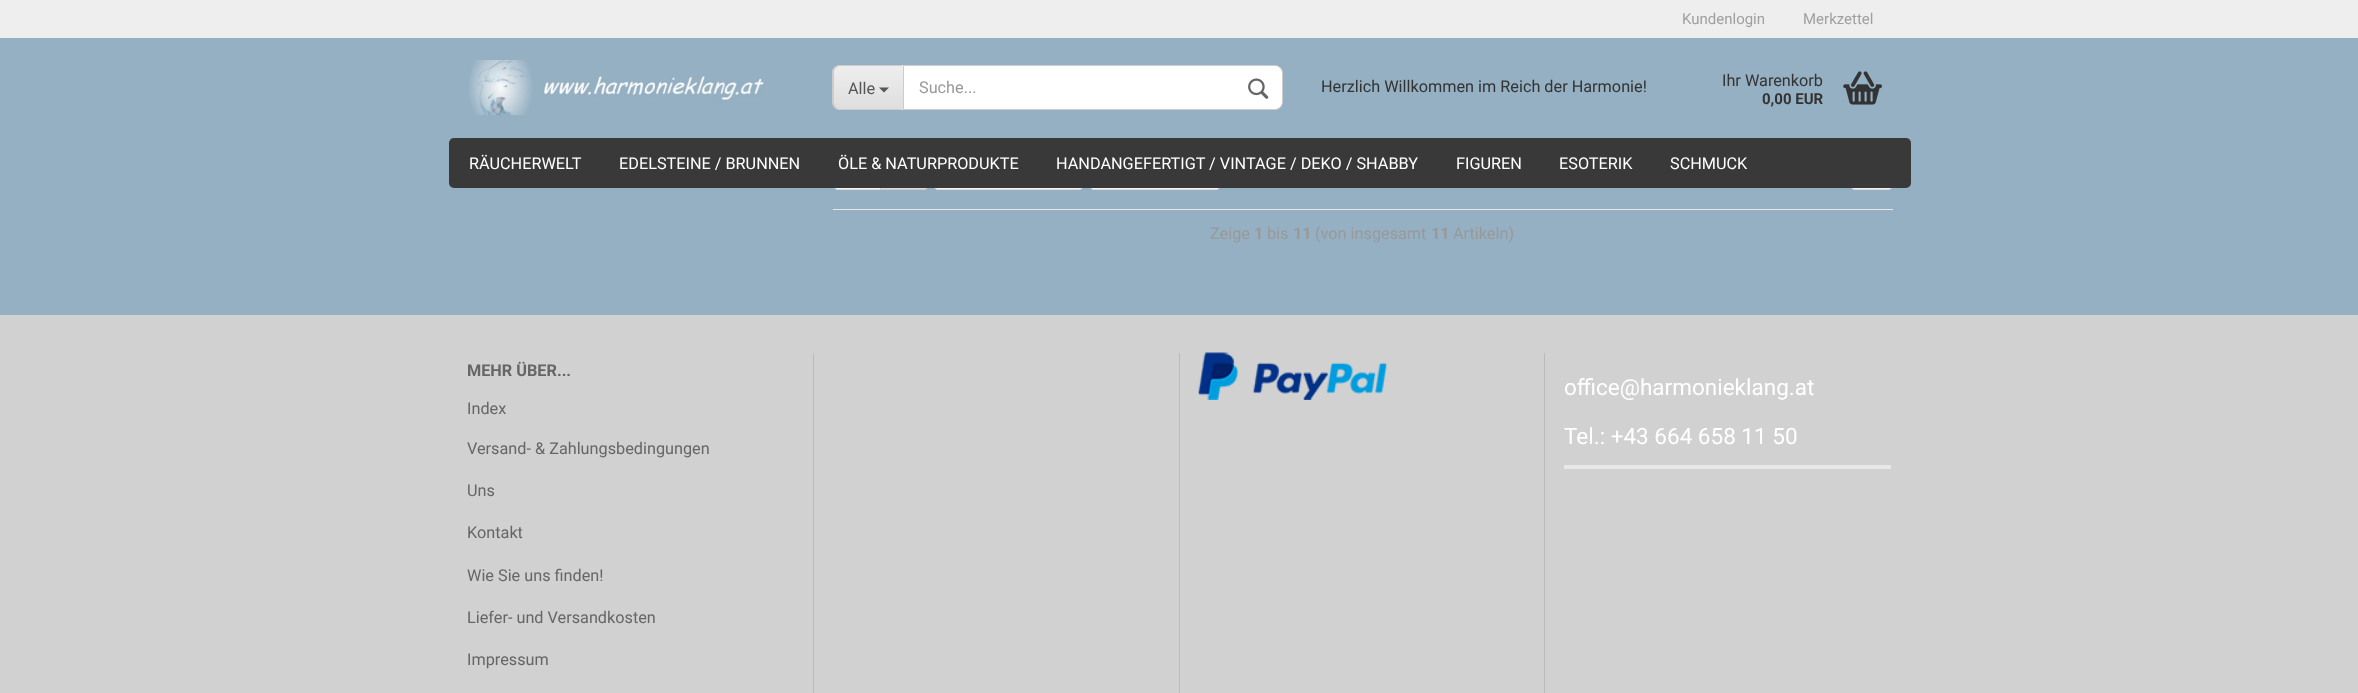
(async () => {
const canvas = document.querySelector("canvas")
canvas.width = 2358
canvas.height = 693
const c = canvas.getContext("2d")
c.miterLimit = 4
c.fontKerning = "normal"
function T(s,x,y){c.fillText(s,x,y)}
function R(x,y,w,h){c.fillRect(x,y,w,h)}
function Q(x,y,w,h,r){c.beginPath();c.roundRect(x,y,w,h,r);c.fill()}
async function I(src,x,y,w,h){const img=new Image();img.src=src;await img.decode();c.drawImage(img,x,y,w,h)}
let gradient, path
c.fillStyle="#95b0c3"
R(0,0,2358,693)
c.fillStyle="#f3f3f3"
c.beginPath()
c.roundRect(833.5,141.5,47,48,[4.5,0,0,4.5])
c.fill()
c.strokeStyle="#ddd"
c.stroke()
c.fillStyle="#dadada"
c.beginPath()
c.roundRect(880.5,141.5,48,48,[0,4.5,4.5,0])
c.fill()
c.strokeStyle="#ccc"
c.stroke()
c.fillStyle="#f3f3f3"
c.beginPath()
c.roundRect(933.5,141.5,150,48,4.5)
c.fill()
c.strokeStyle="#ddd"
c.stroke()
c.beginPath()
c.roundRect(1089.5,141.5,131,48,4.5)
c.fill()
c.stroke()
c.fillStyle="#eee"
c.beginPath()
c.roundRect(1850.5,141.5,42,48,4.5)
c.fill()
c.stroke()
c.fillStyle="#95b0c3"
R(833,141,1060,47)
c.fillStyle="#eee"
R(0,0,2358,38)
c.font="15px Roboto"
c.fillStyle="#9f9f9f"
T("Kundenlogin",1682,24)
T("Merkzettel",1803,24)
await I("1.png",469,60,295,55)
c.fillStyle="#f3f3f3"
c.beginPath()
c.roundRect(833,65,70,45,[8,0,0,8])
c.fill()
c.save()
c.beginPath()
c.roundRect(833,65,70,45,[8,0,0,8])
c.clip()
gradient = c.createLinearGradient(868,66,868,109)
gradient.addColorStop(0,"#eee")
gradient.addColorStop(1,"#dedede")
c.fillStyle = gradient
R(834,66,69,43)
c.restore()
c.fillStyle="#ccc"
path = new Path2D("M840 65h62v45h-62c-4 0-8-3-8-8v-30c0-4 4-7 8-7zm0 1h62v43h-62c-3 0-6-3-6-7v-30c0-3 3-6 6-6z")
c.fill(path,"evenodd")
c.font="16.25px Roboto"
c.fillStyle="#555"
T("Alle",848,94)
path = new Path2D("M879 87.5h10l-5 5z")
c.fill(path)
c.fillStyle="#fff"
c.beginPath()
c.roundRect(903.5,65.5,379,44,[0,7.5,7.5,0])
c.fill()
c.strokeStyle="#ccc"
c.stroke()
c.fillStyle="#999"
T("Suche...",919,93)
await I("2.png",1248,78,21,21)
c.fillStyle="#333"
T("Herzlich Willkommen im Reich der Harmonie!",1321,92)
T("Ihr Warenkorb",1722,86)
c.font="bold 15px Roboto"
T("0,00 EUR",1762,104)
await I("3.png",1843,71,39,34)
c.fillStyle="#393939"
Q(449,138,1462,50,5)
c.font="16.25px Roboto"
c.fillStyle="#fff"
T("RÄUCHERWELT",469,169)
T("EDELSTEINE / BRUNNEN",619,169)
T("ÖLE & NATURPRODUKTE",838,169)
T("HANDANGEFERTIGT / VINTAGE / DEKO / SHABBY",1056,169)
T("FIGUREN",1456,169)
T("ESOTERIK",1559,169)
T("SCHMUCK",1670,169)
c.fillStyle="#e7e7e7"
R(833,209,1060,1)
c.fillStyle="#999"
T("Zeige",1210,239)
c.font="bold 16.25px Roboto"
T("1",1254,239)
c.font="16.25px Roboto"
T("bis",1267,239)
c.font="bold 16.25px Roboto"
T("11",1293,239)
c.font="16.25px Roboto"
T("(von insgesamt",1315,239)
c.font="bold 16.25px Roboto"
T("11",1431,239)
c.font="16.25px Roboto"
T("Artikeln)",1453,239)
c.fillStyle="#d1d1d1"
R(0,315,2358,378)
c.fillStyle="#bbb"
R(813,353,1,340)
c.font="bold 16.25px Roboto"
c.fillStyle="#666"
T("MEHR ÜBER...",467,376)
c.font="16.25px Roboto"
T("Index",467,414)
T("Versand- & Zahlungsbedingungen",467,454)
T("Uns",467,496)
T("Kontakt",467,538)
T("Wie Sie uns finden!",467,581)
T("Liefer- und Versandkosten",467,623)
T("Impressum",467,665)
c.fillStyle="#bbb"
R(1179,353,1,340)
R(1544,353,1,340)
await I("4.png",1198,352,189,48)
c.fillStyle="#e7e7e7"
R(1564,465,327,4)
c.font="22.5px Roboto"
c.fillStyle="#fff"
T("office@harmonieklang.at",1564,395)
T("Tel.: +43 664 658 11 50",1564,444)
})()
